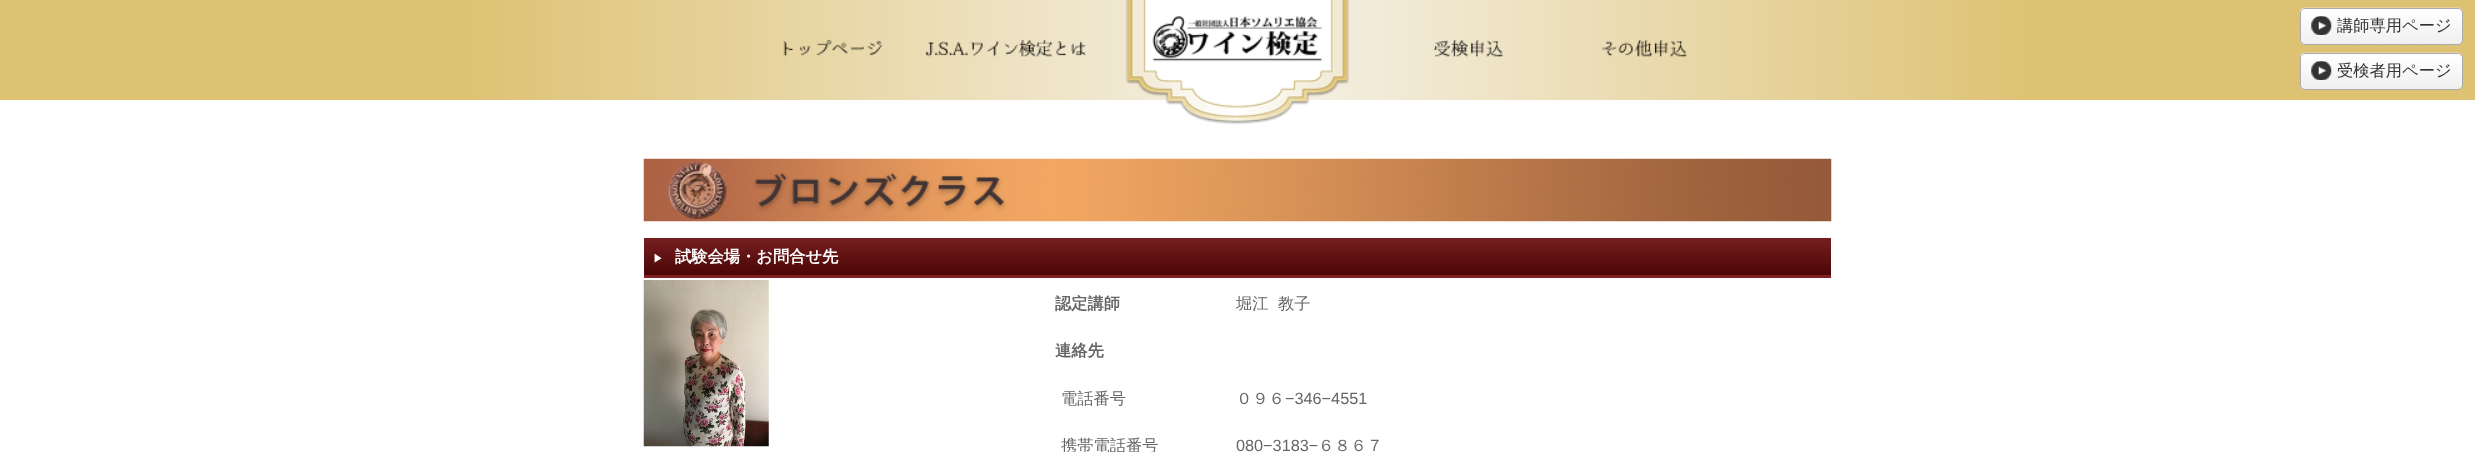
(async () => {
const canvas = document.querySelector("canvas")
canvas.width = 2475
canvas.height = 452
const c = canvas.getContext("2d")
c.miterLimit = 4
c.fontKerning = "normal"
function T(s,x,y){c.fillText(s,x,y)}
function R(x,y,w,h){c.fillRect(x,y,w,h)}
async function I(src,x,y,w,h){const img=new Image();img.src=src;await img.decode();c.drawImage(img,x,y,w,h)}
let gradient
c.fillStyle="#fff"
R(0,0,2475,452)
await I("1.png",0,0,2475,100)
await I("2.png",783,39,100,18)
await I("3.png",925,39,161,18)
await I("4.png",1125,0,225,125)
await I("5.png",1433,40,70,17)
await I("6.png",1601,39,86,18)
await I("7.png",2300,7,163,38)
c.beginPath()
c.roundRect(2300.5,8.5,162,36,4.5)
c.strokeStyle="#aaa"
c.stroke()
await I("8.png",2311,16,21,19)
c.font="500 16.25px WenQuanYi Zen Hei"
c.fillStyle="#333"
T("講師専用ページ",2337,31)
await I("7.png",2300,52,163,38)
c.beginPath()
c.roundRect(2300.5,53.5,162,36,4.5)
c.stroke()
await I("8.png",2311,61,21,19)
T("受検者用ページ",2337,76)
await I("9.png",643,158,1189,64)
gradient = c.createLinearGradient(1238,237,1238,275)
gradient.addColorStop(0,"#771f20")
gradient.addColorStop(1,"#4b0606")
c.fillStyle = gradient
R(644,238,1187,37)
c.fillStyle="#7f2122"
R(644,275,1187,3)
c.font="bold 10px WenQuanYi Zen Hei"
c.fillStyle="#fff"
T("▶︎",653,262)
c.font="bold 16.25px WenQuanYi Zen Hei"
T("試験会場・お問合せ先",675,262)
await I("10.png",643,280,126,167)
c.fillStyle="#666"
T("認定講師",1055,309)
c.font="500 16.25px WenQuanYi Zen Hei"
T("堀江",1236,309)
T("教子",1278,309)
c.font="bold 16.25px WenQuanYi Zen Hei"
T("連絡先",1055,356)
c.font="500 16.25px WenQuanYi Zen Hei"
T("電話番号",1061,404)
T("０９６",1236,404)
c.font="16.25px Liberation Sans"
T("−346−4551",1285,404)
c.font="500 16.25px WenQuanYi Zen Hei"
T("携帯電話番号",1061,451)
c.font="16.25px Liberation Sans"
T("080−3183−",1236,451)
c.font="500 16.25px WenQuanYi Zen Hei"
T("６８６７",1318,451)
})()
